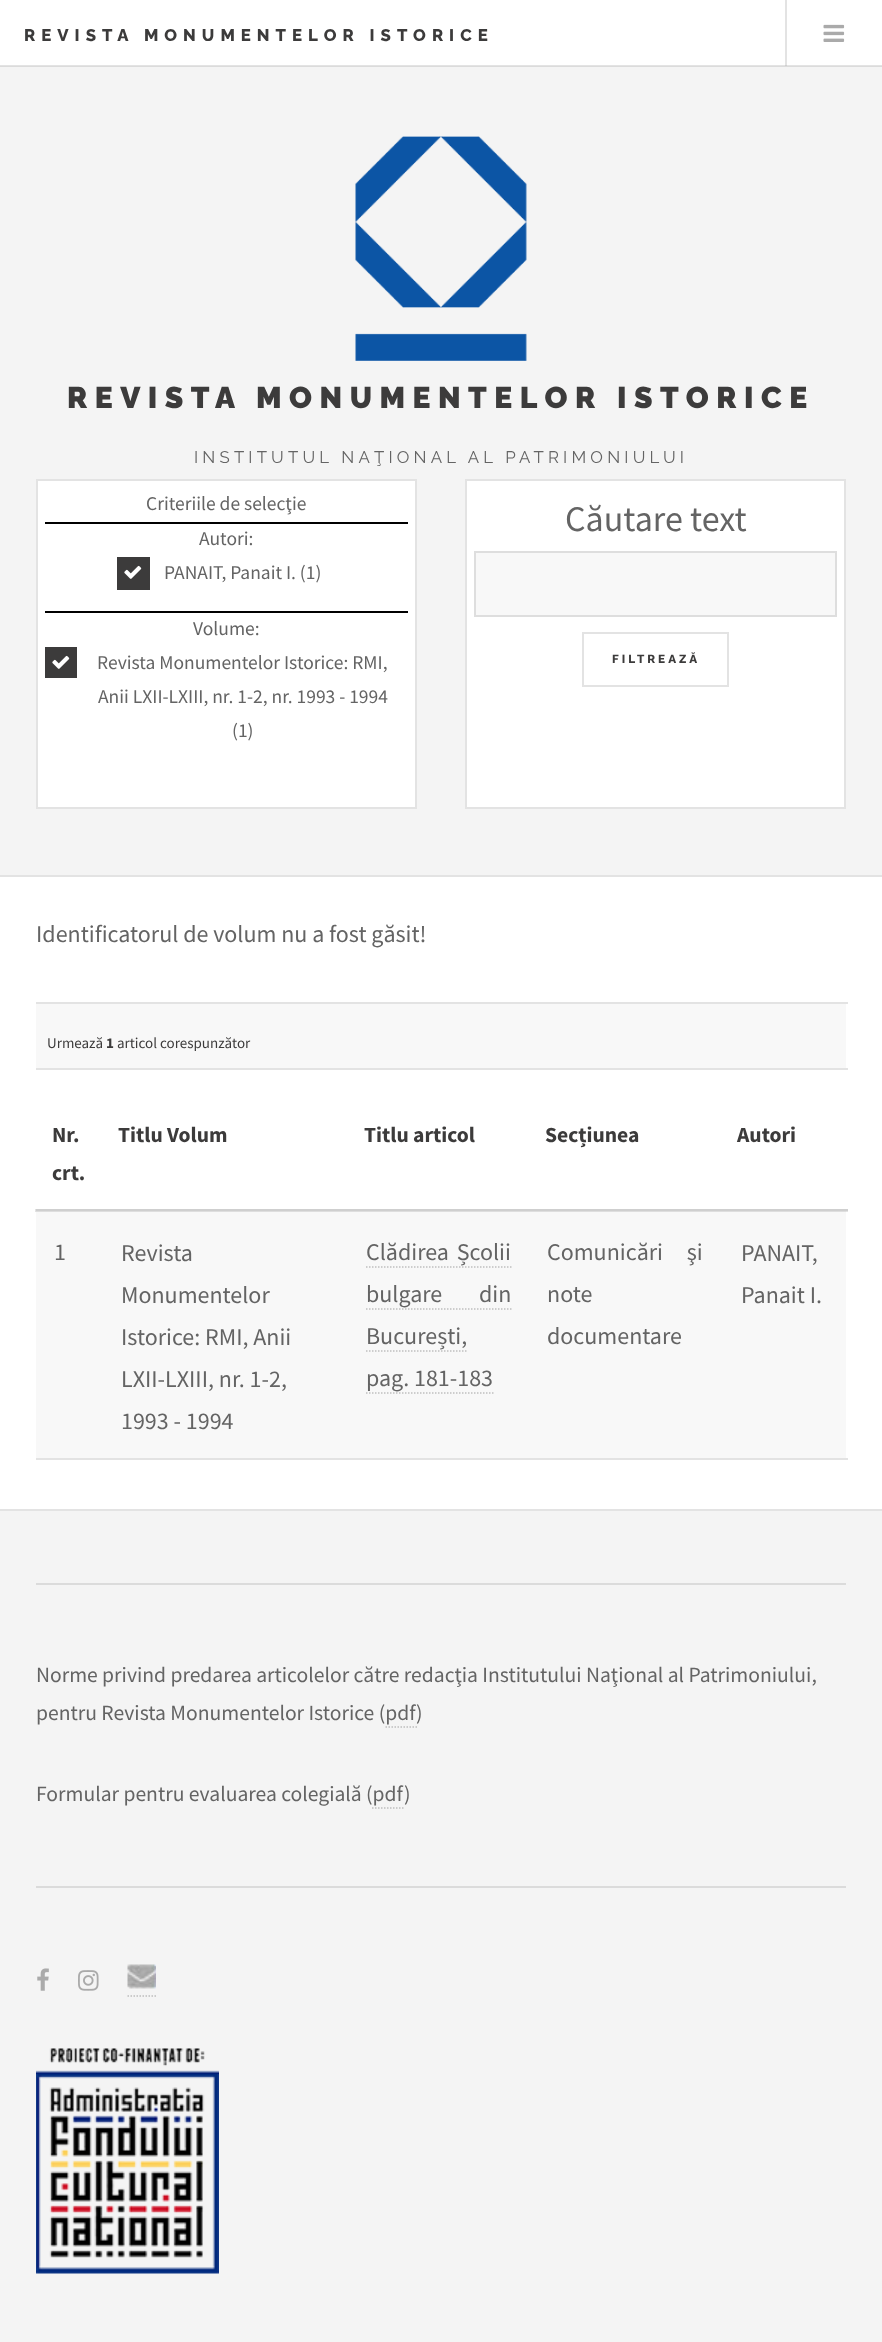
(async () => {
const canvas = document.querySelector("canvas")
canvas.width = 882
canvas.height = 2342
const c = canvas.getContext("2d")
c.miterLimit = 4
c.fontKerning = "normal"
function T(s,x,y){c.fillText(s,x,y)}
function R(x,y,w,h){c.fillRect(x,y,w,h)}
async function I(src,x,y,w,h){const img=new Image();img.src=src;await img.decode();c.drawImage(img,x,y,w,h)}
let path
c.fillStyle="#f4f4f4"
R(0,0,882,2342)
c.fillStyle="#dbdbdb"
R(0,66,882,1)
c.fillStyle="#fff"
R(0,0,882,65)
c.fillStyle="#e3e3e3"
R(785,0,2,66)
R(0,65,882,1)
c.fillStyle="#cfcfcf"
R(785,65,2,1)
c.letterSpacing="6px"
c.font="800 16.8px Raleway"
c.fillStyle="#3c3b3b"
T("REVISTA MONUMENTELOR ISTORICE",24,41)
await I("1.png",823,24,22,18)
await I("2.png",355,136,172,225)
c.letterSpacing="7.5px"
c.font="900 30px Raleway"
T("REVISTA MONUMENTELOR ISTORICE",67,408)
c.letterSpacing="4.2px"
c.font="16.8px Raleway"
c.fillStyle="#646464"
T("INSTITUTUL NAŢIONAL AL PATRIMONIULUI",194,463)
c.fillStyle="#fff"
c.beginPath()
c.rect(37,480,379,328)
c.fill()
c.strokeStyle="#e3e3e3"
c.lineWidth=2
c.stroke()
c.letterSpacing="0px"
c.font="19.5px Source Sans Pro"
c.fillStyle="#646464"
T("Criteriile de selecţie",146,510)
c.fillStyle="#000"
R(45,522,363,2)
c.fillStyle="#646464"
T("Autori:",199,545)
c.fillStyle="#3c3b3b"
R(117,557,33,33)
await I("3.png",124,565,18,14)
c.fillStyle="#646464"
T("PANAIT, Panait I. (1)",164,579)
c.fillStyle="#000"
R(45,611,363,2)
c.fillStyle="#646464"
T("Volume:",193,635)
c.fillStyle="#3c3b3b"
R(45,647,32,31)
await I("3.png",52,655,18,14)
c.fillStyle="#646464"
T("Revista Monumentelor Istorice: RMI,",97,669)
T("Anii LXII-LXIII, nr. 1-2, nr. 1993 - 1994",98,703)
T("(1)",232,737)
c.fillStyle="#fff"
c.beginPath()
c.rect(466,480,379,328)
c.fill()
c.stroke()
c.font="36px Source Sans Pro"
c.fillStyle="#646464"
T("Căutare text",565,531)
c.fillStyle="#f8f8f8"
c.beginPath()
c.rect(475,552,361,64)
c.fill()
c.strokeStyle="#dedede"
c.stroke()
c.strokeStyle="#e3e3e3"
c.strokeRect(583,633,145,53)
c.letterSpacing="3px"
c.font="800 11.75px Raleway"
c.fillStyle="#3c3b3b"
T("FILTREAZĂ",612,663)
c.fillStyle="#fff"
R(0,877,882,632)
c.fillStyle="#e3e3e3"
R(35,1209,813,3)
R(0,875,882,2)
R(0,1509,882,2)
c.letterSpacing="0px"
c.font="24px Source Sans Pro"
c.fillStyle="#646464"
T("Identificatorul de volum nu a fost găsit!",36,942)
c.fillStyle="#f8f8f8"
R(36,1004,810,64)
c.fillStyle="#e3e3e3"
R(36,1002,812,2)
R(36,1068,812,2)
c.font="15px Source Sans Pro"
c.fillStyle="#3c3b3b"
T("Urmează",47,1048)
c.font="bold 15px Source Sans Pro"
T("1",106,1048)
c.font="15px Source Sans Pro"
T("articol corespunzător",117,1048)
c.font="bold 21.6px Source Sans Pro"
T("Nr.",52,1142)
T("crt.",52,1180)
T("Titlu Volum",118,1142)
T("Titlu articol",364,1142)
T("Secțiunea",545,1142)
T("Autori",737,1142)
c.fillStyle="#f8f8f8"
R(36,1212,810,246)
c.fillStyle="#dedede"
R(36,1211,810,1)
c.fillStyle="#cfcfcf"
R(36,1209,812,2)
c.fillStyle="#e3e3e3"
R(36,1458,812,2)
c.font="24px Source Sans Pro"
c.fillStyle="#646464"
T("1",54,1260)
T("Revista",121,1261)
T("Monumentelor",121,1303)
T("Istorice: RMI, Anii",121,1345)
T("LXII-LXIII, nr. 1-2,",121,1387)
T("1993 - 1994",121,1429)
c.wordSpacing="3px"
T("Clădirea Școlii",366,1260)
path = new Path2D("M366 1267h145.5")
c.strokeStyle="#bfbfbf"
c.lineWidth=1.5
c.setLineDash([1.5,1.5])
c.stroke(path)
c.wordSpacing="32px"
T("bulgare din",366,1302)
path = new Path2D("M366 1309h145.5")
c.stroke(path)
c.wordSpacing="0px"
T("București,",366,1344)
path = new Path2D("M366 1351h102")
c.stroke(path)
T("pag. 181-183",366,1386)
path = new Path2D("M366 1393h127.5")
c.stroke(path)
c.wordSpacing="19px"
T("Comunicări şi",547,1260)
c.wordSpacing="0px"
T("note",547,1302)
T("documentare",547,1344)
T("PANAIT,",741,1261)
T("Panait I.",741,1303)
c.fillStyle="#dbdbdb"
R(36,1583,810,2)
c.font="21.6px Source Sans Pro"
c.fillStyle="#646464"
T("Norme privind predarea articolelor către redacţia Institutului Naţional al Patrimoniului,",36,1682)
T("pentru Revista Monumentelor Istorice (pdf",36,1720)
T(")",416,1720)
path = new Path2D("M385.5 1727h31.5")
c.strokeStyle="#bdbdbd"
c.stroke(path)
T("Formular pentru evaluarea colegială (pdf",36,1801)
T(")",404,1801)
path = new Path2D("M372 1808h31.5")
c.stroke(path)
c.fillStyle="#dbdbdb"
R(36,1886,810,2)
await I("4.png",37,1968,12,23)
await I("5.png",78,1970,21,21)
await I("6.png",127,1964,29,25)
path = new Path2D("M127.5 1996h28.5")
c.stroke(path)
await I("7.png",36,2048,183,226)
})()
